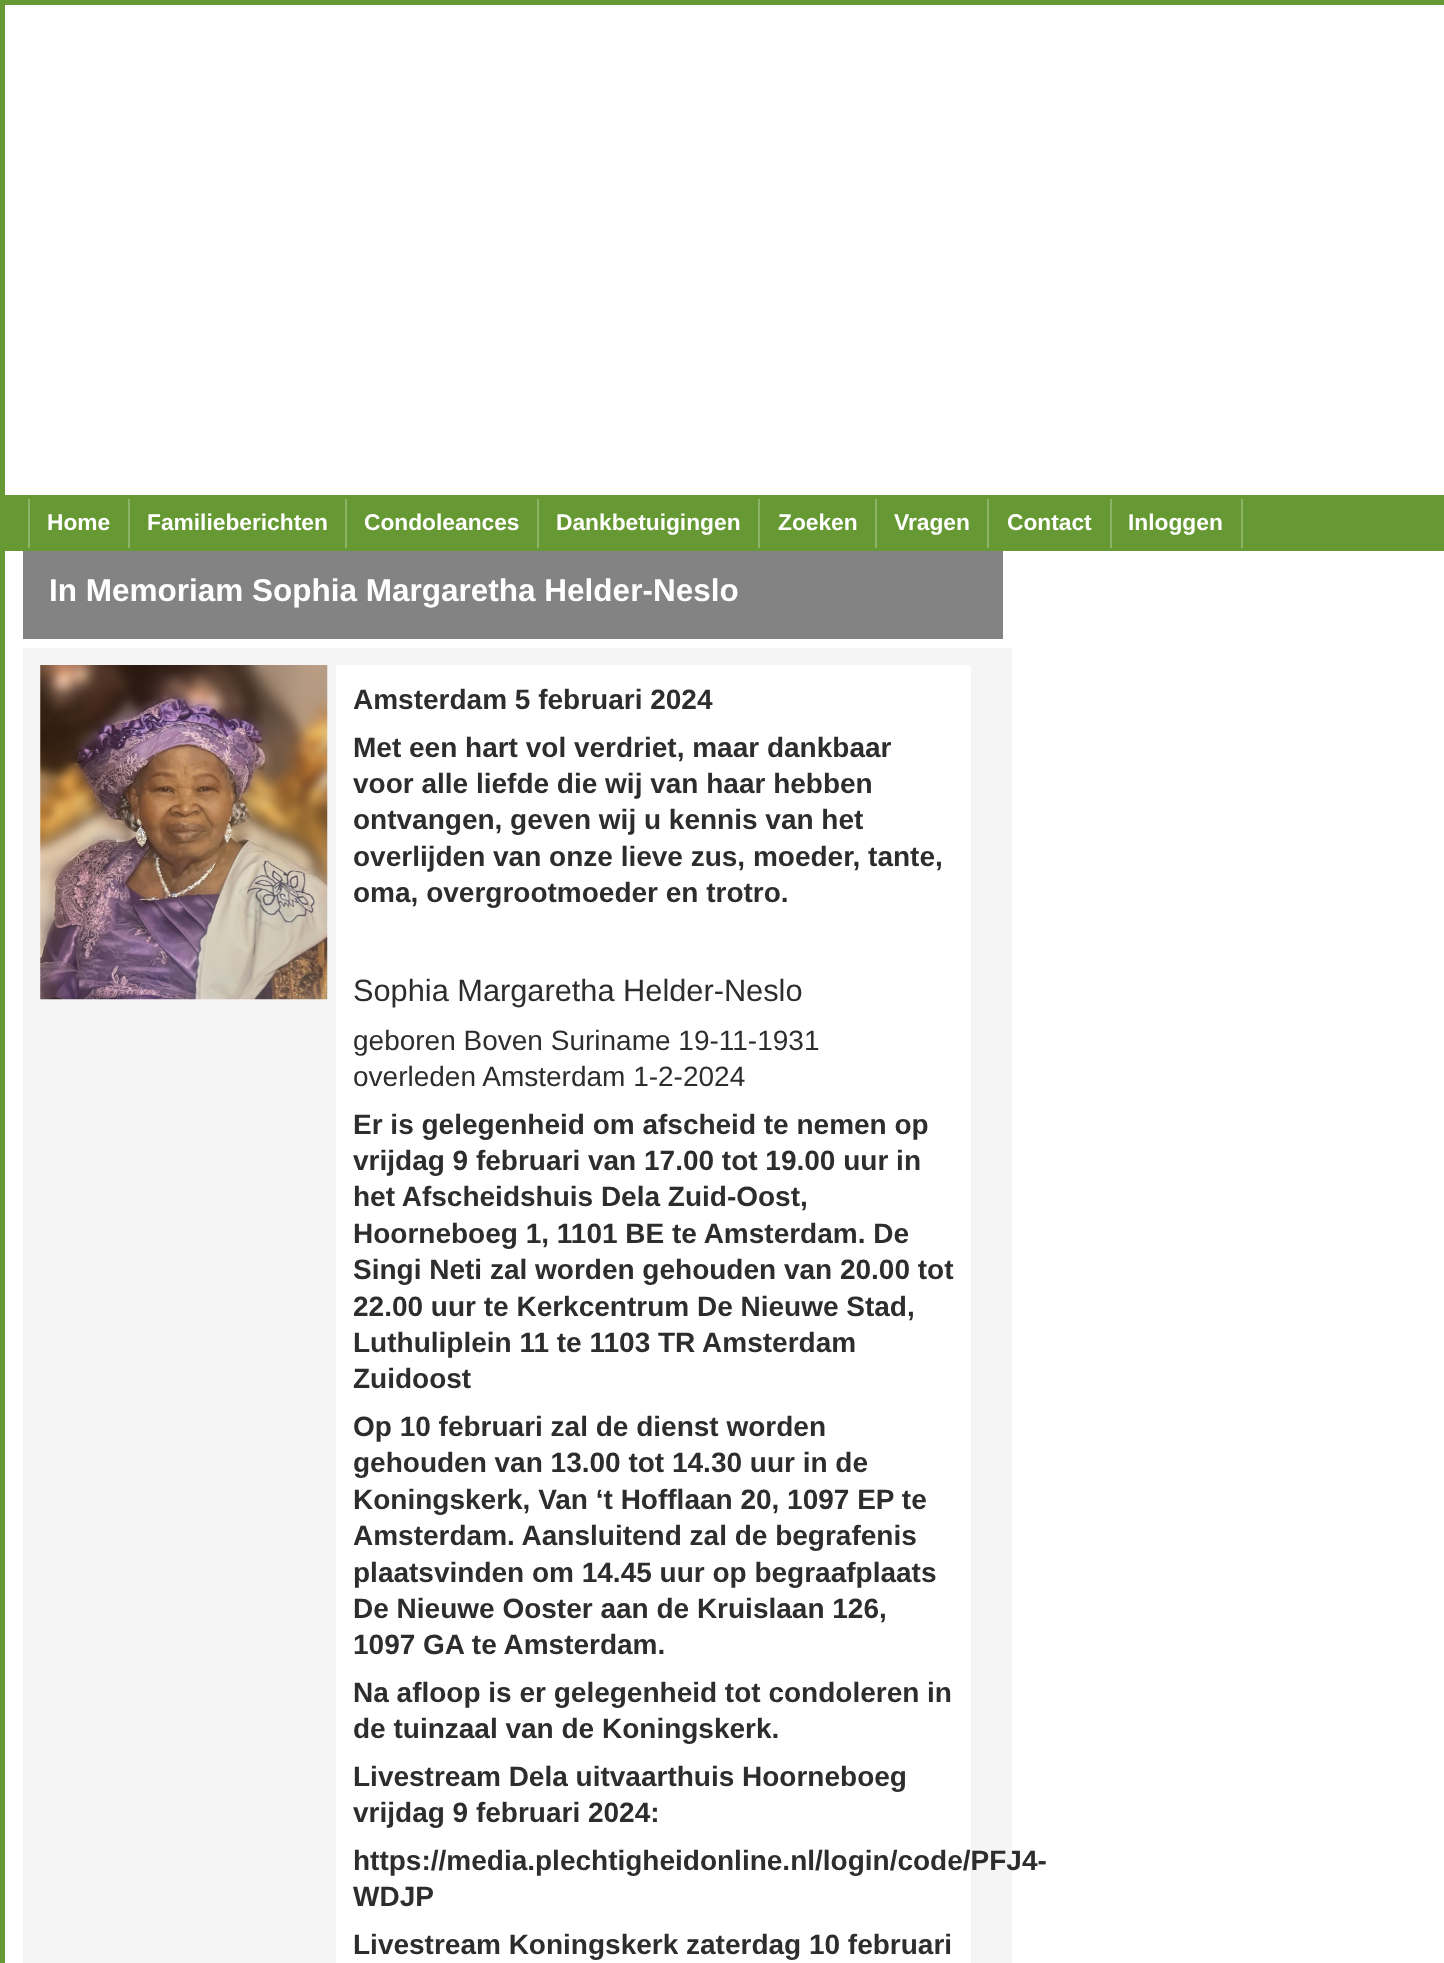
(async () => {
const canvas = document.querySelector("canvas")
canvas.width = 1444
canvas.height = 1963
const c = canvas.getContext("2d")
c.miterLimit = 4
c.fontKerning = "normal"
function T(s,x,y){c.fillText(s,x,y)}
function R(x,y,w,h){c.fillRect(x,y,w,h)}
async function I(src,x,y,w,h){const img=new Image();img.src=src;await img.decode();c.drawImage(img,x,y,w,h)}
c.fillStyle="#693"
R(0,0,1444,1963)
c.fillStyle="#fff"
R(5,5,1439,490)
c.fillStyle="#8cb366"
R(128,499,2,49)
R(28,499,2,49)
c.font="bold 22.75px Liberation Sans"
c.fillStyle="#fff"
T("Home",47,530)
c.fillStyle="#8cb366"
R(345,499,2,49)
c.fillStyle="#fff"
T("Familieberichten",147,530)
c.fillStyle="#8cb366"
R(537,499,2,49)
c.fillStyle="#fff"
T("Condoleances",364,530)
c.fillStyle="#8cb366"
R(758,499,2,49)
c.fillStyle="#fff"
T("Dankbetuigingen",556,530)
c.fillStyle="#8cb366"
R(875,499,2,49)
c.fillStyle="#fff"
T("Zoeken",778,530)
c.fillStyle="#8cb366"
R(987,499,2,49)
c.fillStyle="#fff"
T("Vragen",894,530)
c.fillStyle="#8cb366"
R(1110,499,2,49)
c.fillStyle="#fff"
T("Contact",1007,530)
c.fillStyle="#8cb366"
R(1241,499,2,49)
c.fillStyle="#fff"
T("Inloggen",1128,530)
R(5,551,1439,1412)
c.fillStyle="#838383"
R(23,551,980,88)
c.font="bold 31.5px Arimo"
c.fillStyle="#fff"
T("In Memoriam Sophia Margaretha Helder-Neslo",49,601)
c.fillStyle="#f5f5f5"
R(23,648,989,1315)
await I("1.png",40,665,288,335)
c.fillStyle="#fff"
R(336,665,635,1298)
c.font="bold 28px Arimo"
c.fillStyle="#2d2d2d"
T("Amsterdam 5 februari 2024",353,709)
T("Met een hart vol verdriet, maar dankbaar",353,757)
T("voor alle liefde die wij van haar hebben",353,793)
T("ontvangen, geven wij u kennis van het",353,829)
T("overlijden van onze lieve zus, moeder, tante,",353,866)
T("oma, overgrootmoeder en trotro.",353,902)
c.font="30.75px Arimo"
T("Sophia Margaretha Helder-Neslo",353,1001)
c.font="28px Arimo"
T("geboren Boven Suriname 19-11-1931",353,1050)
T("overleden Amsterdam 1-2-2024",353,1086)
c.font="bold 28px Arimo"
T("Er is gelegenheid om afscheid te nemen op",353,1134)
T("vrijdag 9 februari van 17.00 tot 19.00 uur in",353,1170)
T("het Afscheidshuis Dela Zuid-Oost,",353,1206)
T("Hoorneboeg 1, 1101 BE te Amsterdam. De",353,1243)
T("Singi Neti zal worden gehouden van 20.00 tot",353,1279)
T("22.00 uur te Kerkcentrum De Nieuwe Stad,",353,1316)
T("Luthuliplein 11 te 1103 TR Amsterdam",353,1352)
T("Zuidoost",353,1388)
T("Op 10 februari zal de dienst worden",353,1436)
T("gehouden van 13.00 tot 14.30 uur in de",353,1472)
T("Koningskerk, Van ‘t Hofflaan 20, 1097 EP te",353,1509)
T("Amsterdam. Aansluitend zal de begrafenis",353,1545)
T("plaatsvinden om 14.45 uur op begraafplaats",353,1582)
T("De Nieuwe Ooster aan de Kruislaan 126,",353,1618)
T("1097 GA te Amsterdam.",353,1654)
T("Na afloop is er gelegenheid tot condoleren in",353,1702)
T("de tuinzaal van de Koningskerk.",353,1738)
T("Livestream Dela uitvaarthuis Hoorneboeg",353,1786)
T("vrijdag 9 februari 2024:",353,1822)
T("https://media.plechtigheidonline.nl/login/code/PFJ4-",353,1870)
T("WDJP",353,1906)
T("Livestream Koningskerk zaterdag 10 februari",353,1954)
})()
